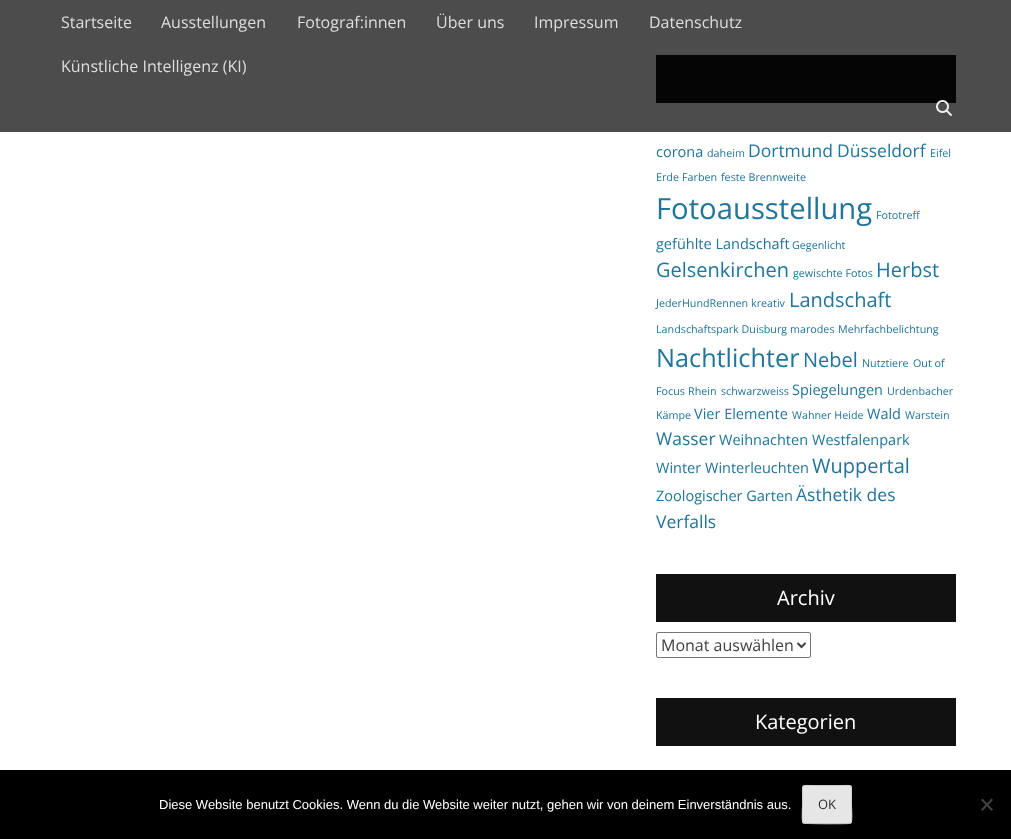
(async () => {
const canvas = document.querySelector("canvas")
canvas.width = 1011
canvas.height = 839
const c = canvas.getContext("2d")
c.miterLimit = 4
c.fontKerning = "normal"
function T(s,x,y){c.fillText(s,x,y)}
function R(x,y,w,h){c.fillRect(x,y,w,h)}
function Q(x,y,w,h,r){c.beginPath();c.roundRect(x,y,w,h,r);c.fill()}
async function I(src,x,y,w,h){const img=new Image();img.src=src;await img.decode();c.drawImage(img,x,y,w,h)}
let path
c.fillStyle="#fff"
R(0,0,1011,839)
c.fillStyle="#111"
R(656,55,300,48)
c.fillStyle="#000000b3"
R(0,0,1011,132)
c.font="16px Open Sans"
c.fillStyle="#ddd"
T("Startseite",61,28)
T("Ausstellungen",161,28)
T("Fotograf:innen",297,28)
T("Über uns",436,28)
T("Impressum",534,28)
T("Datenschutz",649,28)
T("Künstliche Intelligenz (KI)",61,72)
await I("1.png",936,100,16,16)
c.font="14.5px Open Sans"
c.fillStyle="#21759b"
T("corona",656,157)
c.font="10.75px Open Sans"
T("daheim",707,157)
c.font="17.5px Open Sans"
T("Dortmund",748,157)
T("Düsseldorf",837,157)
c.font="10.75px Open Sans"
T("Eifel",930,157)
T("Erde",656,181)
T("Farben",682,181)
T("feste Brennweite",721,181)
c.font="29.25px Open Sans"
T("Fotoausstellung",656,219)
c.font="10.75px Open Sans"
T("Fototreff",876,219)
c.font="14.5px Open Sans"
T("gefühlte Landschaft",656,249)
c.font="10.75px Open Sans"
T("Gegenlicht",792,249)
c.font="20px Open Sans"
T("Gelsenkirchen",656,277)
c.font="10.75px Open Sans"
T("gewischte Fotos",793,277)
c.font="20px Open Sans"
T("Herbst",876,277)
c.font="10.75px Open Sans"
T("JederHundRennen",656,307)
T("kreativ",751,307)
c.font="20px Open Sans"
T("Landschaft",789,307)
c.font="10.75px Open Sans"
T("Landschaftspark Duisburg",656,333)
T("marodes",790,333)
T("Mehrfachbelichtung",838,333)
c.font="25.25px Open Sans"
T("Nachtlichter",656,367)
c.font="20px Open Sans"
T("Nebel",803,367)
c.font="10.75px Open Sans"
T("Nutztiere",862,367)
T("Out of",913,367)
T("Focus",656,395)
T("Rhein",688,395)
T("schwarzweiss",721,395)
c.font="14.5px Open Sans"
T("Spiegelungen",792,395)
c.font="10.75px Open Sans"
T("Urdenbacher",887,395)
T("Kämpe",656,419)
c.font="14.5px Open Sans"
T("Vier Elemente",694,419)
c.font="10.75px Open Sans"
T("Wahner Heide",792,419)
c.font="14.5px Open Sans"
T("Wald",867,419)
c.font="10.75px Open Sans"
T("Warstein",905,419)
c.font="17.5px Open Sans"
T("Wasser",656,445)
c.font="14.5px Open Sans"
T("Weihnachten",719,445)
T("Westfalenpark",812,445)
T("Winter",656,473)
T("Winterleuchten",705,473)
c.font="20px Open Sans"
T("Wuppertal",812,473)
c.font="14.5px Open Sans"
T("Zoologischer Garten",656,501)
c.font="17.5px Open Sans"
T("Ästhetik des",796,501)
T("Verfalls",656,528)
c.fillStyle="#111"
R(656,574,300,48)
c.font="20px Open Sans"
c.fillStyle="#fff"
T("Archiv",777,605)
c.beginPath()
c.roundRect(656.5,632.5,154,25,1.5)
c.strokeStyle="#767676"
c.stroke()
path = new Path2D("M797.5 643l4 4l4-4")
c.strokeStyle="#404040"
c.lineWidth=2
c.stroke(path)
c.font="16px Open Sans"
c.fillStyle="#404040"
T("Monat auswählen",661,651)
c.fillStyle="#111"
R(656,698,300,48)
c.font="20px Open Sans"
c.fillStyle="#fff"
T("Kategorien",755,729)
c.fillStyle="#000"
R(0,770,1011,69)
c.font="13px Liberation Sans"
c.fillStyle="#fff"
T("Diese Website benutzt Cookies. Wenn du die Website weiter nutzt, gehen wir von deinem Einverständnis aus.",159,809)
c.fillStyle="#e6e6e6"
Q(802,785,50,39,3)
path = new Path2D("M851 823l-2 .5c-4 .5-44.5 .5-46-.5")
c.strokeStyle="#bbb"
c.lineWidth=1
c.stroke(path)
path = new Path2D("M803 823c-1.5-2-.5-15.5-.5-18.5v-11c0-9.5-.5-8 10-8h29c10.5 0 10-1.5 10 8v11c0 3 1 16.5-.5 18.5")
c.strokeStyle="#ccc"
c.stroke(path)
c.font="13px Open Sans"
c.fillStyle="#2e2e2e"
T("OK",818,809)
c.fillStyle="#404040"
path = new Path2D("M991.5 798.5l1.5 1.5l-10.5 11l-1.5-1.5z")
c.fill(path)
path = new Path2D("M981 800l1.5-1.5l10.5 11l-1.5 1.5z")
c.fill(path)
})()
